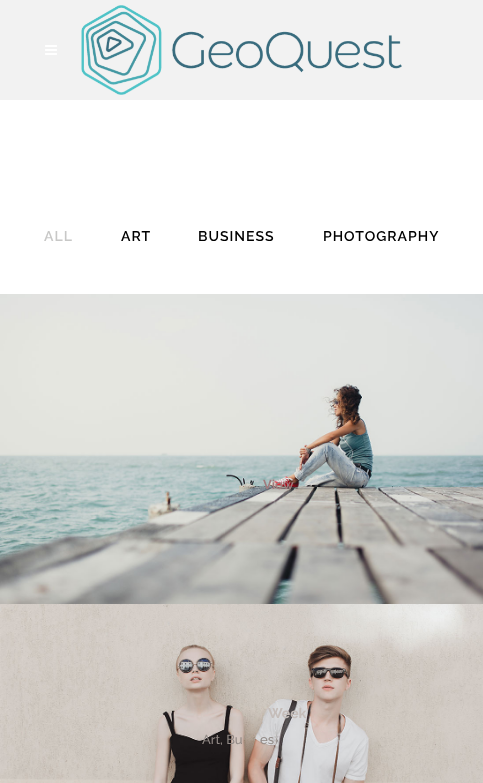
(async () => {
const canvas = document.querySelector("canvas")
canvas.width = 483
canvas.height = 783
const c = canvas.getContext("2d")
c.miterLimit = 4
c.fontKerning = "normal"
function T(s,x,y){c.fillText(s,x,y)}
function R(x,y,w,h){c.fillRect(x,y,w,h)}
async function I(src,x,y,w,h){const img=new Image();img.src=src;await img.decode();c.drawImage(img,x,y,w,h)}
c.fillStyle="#fff"
R(0,0,483,783)
c.fillStyle="#f2f2f2"
R(0,0,483,100)
await I("1.png",45,45,12,10)
await I("2.png",81,5,321,90)
c.letterSpacing="1px"
c.font="600 14px Raleway"
c.fillStyle="#c8c8c7"
T("ALL",44,241)
c.fillStyle="#000"
T("ART",121,241)
T("BUSINESS",198,241)
T("PHOTOGRAPHY",323,241)
await I("3.png",0,294,483,310)
c.letterSpacing="0px"
c.font="bold 13px Raleway"
c.fillStyle="#a17b7d"
T("View",263,489)
await I("4.png",0,604,483,179)
c.font="bold 14px Raleway"
c.fillStyle="#c5bdb9"
T("Week",268,718)
c.font="500 13px Raleway"
c.fillStyle="#918985"
T("Art, Bu",202,744)
T("es",260,744)
})()
